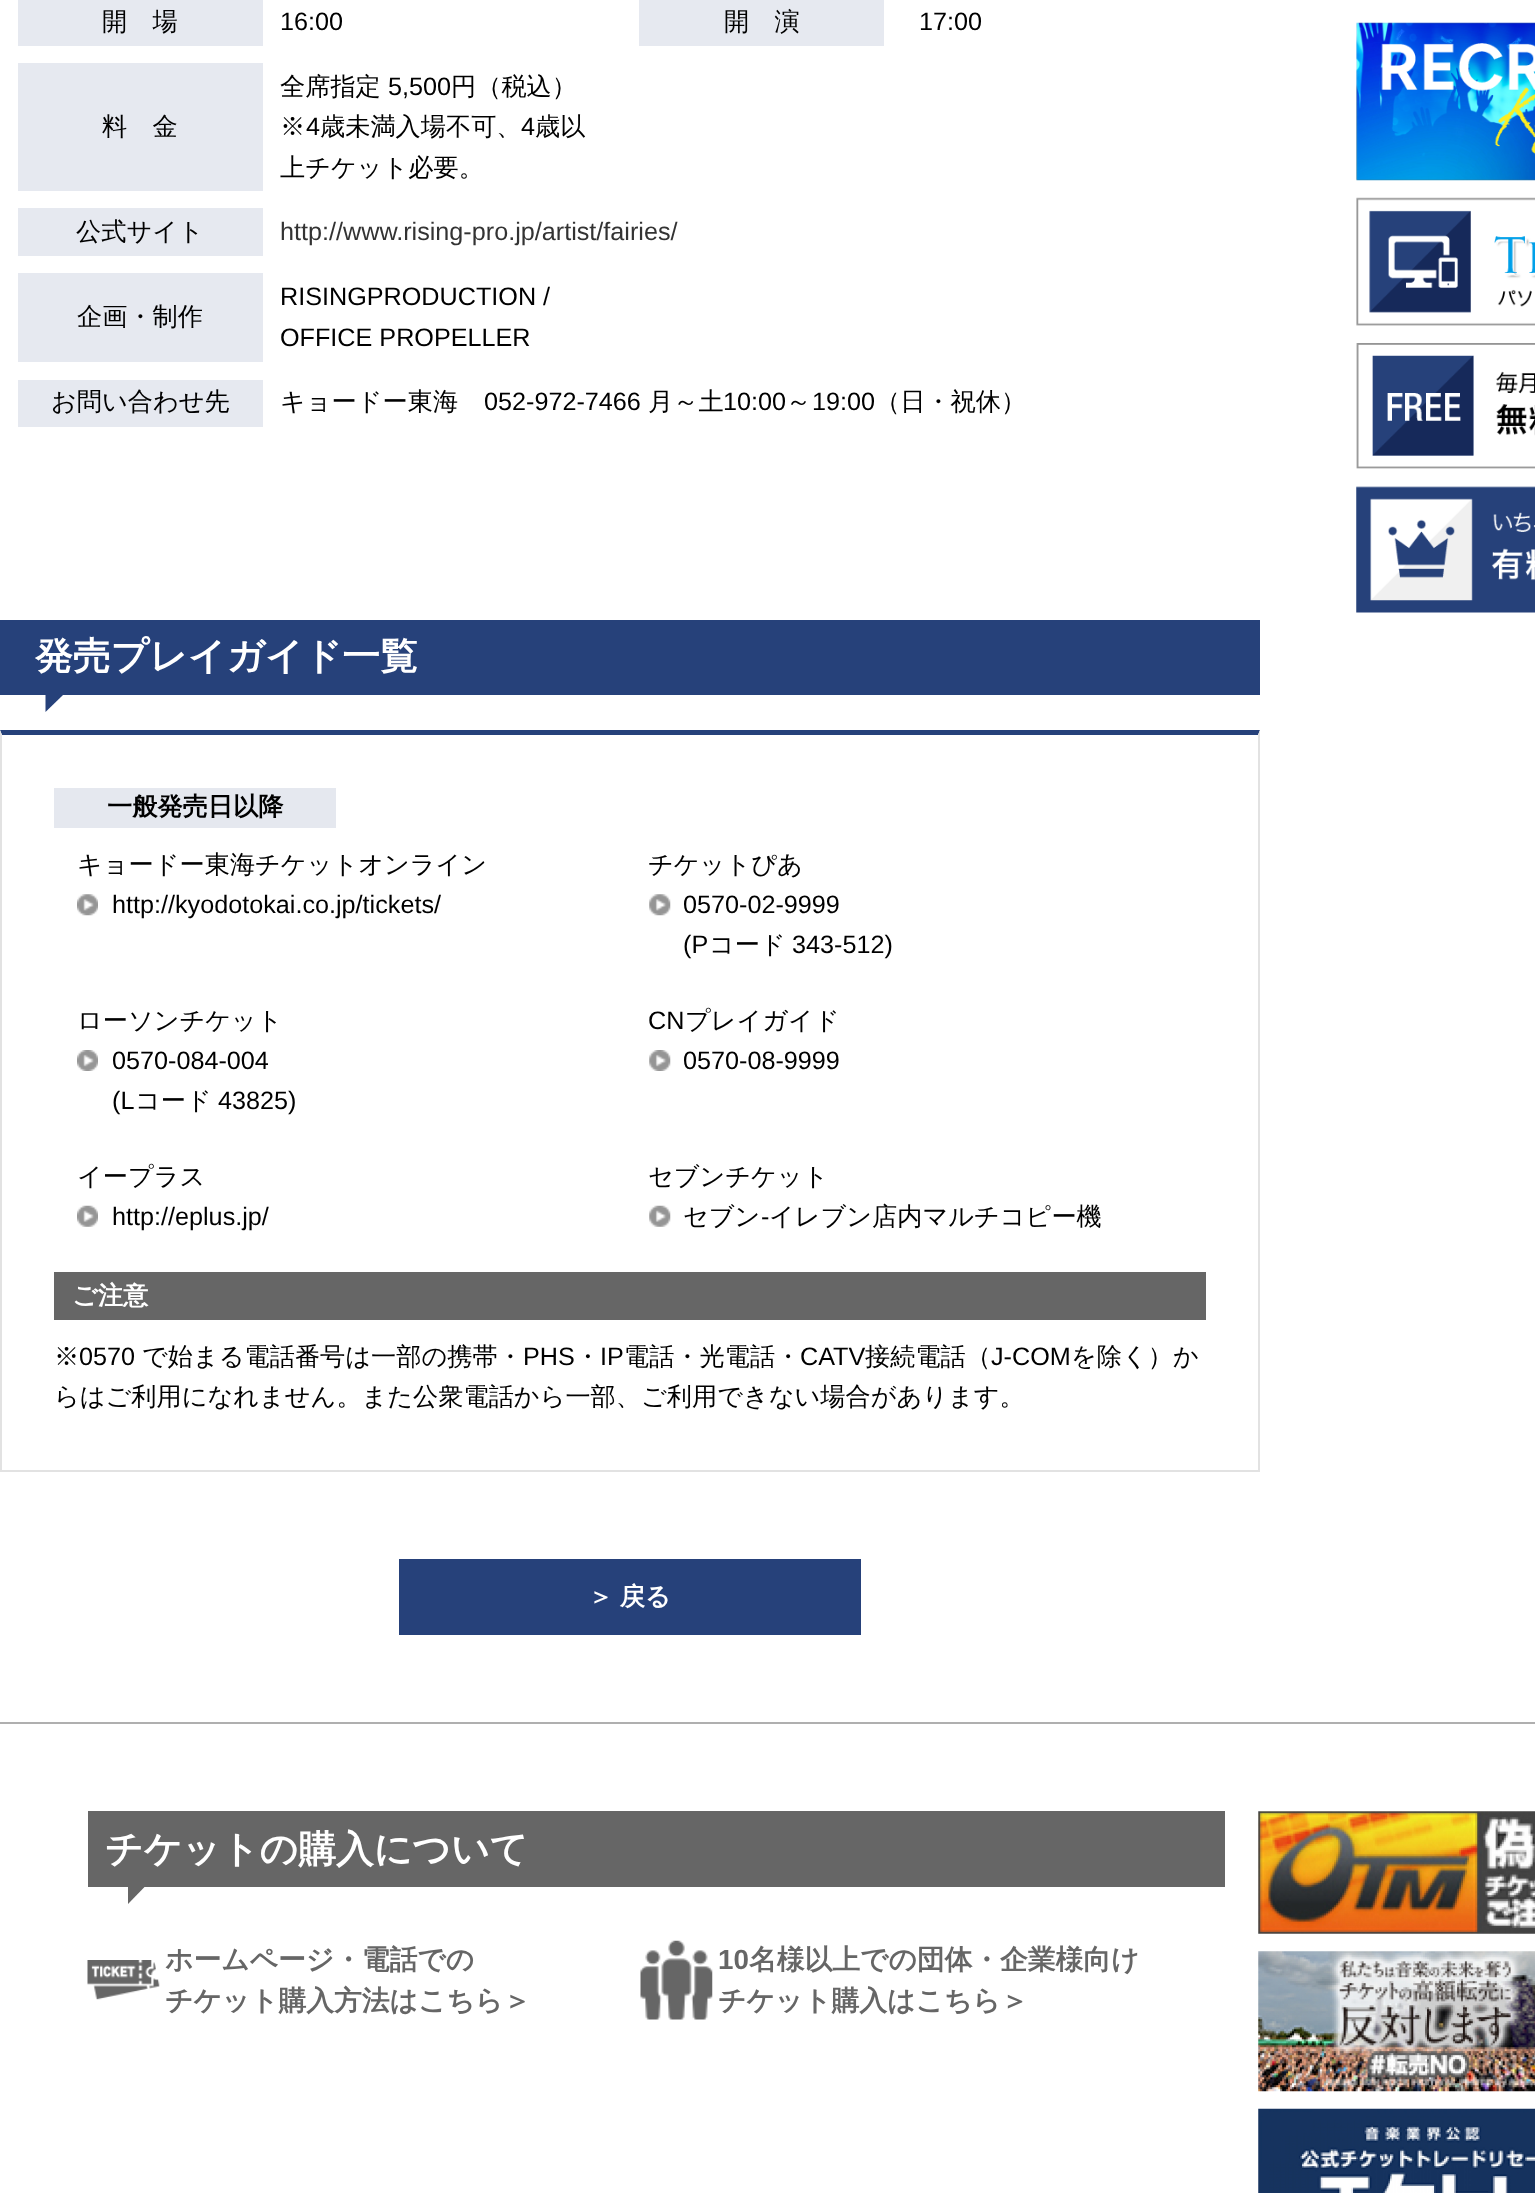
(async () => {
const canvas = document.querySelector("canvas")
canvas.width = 1535
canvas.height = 2193
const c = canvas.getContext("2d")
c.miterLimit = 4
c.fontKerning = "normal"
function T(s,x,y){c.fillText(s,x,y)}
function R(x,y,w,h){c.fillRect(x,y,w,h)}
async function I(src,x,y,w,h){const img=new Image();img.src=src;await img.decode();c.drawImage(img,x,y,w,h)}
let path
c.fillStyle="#fff"
R(0,0,1535,2193)
c.fillStyle="#e6e9f0"
R(18,0,245,46)
c.font="500 25.2px WenQuanYi Zen Hei"
c.fillStyle="#000"
T("開　場",102,30)
c.font="25.2px Liberation Sans"
T("16:00",280,30)
c.fillStyle="#e6e9f0"
R(639,0,245,46)
c.font="500 25.2px WenQuanYi Zen Hei"
c.fillStyle="#000"
T("開　演",724,30)
c.font="25.2px Liberation Sans"
T("17:00",919,30)
c.fillStyle="#e6e9f0"
R(18,63,245,128)
c.font="500 25.2px WenQuanYi Zen Hei"
c.fillStyle="#000"
T("料　金",102,135)
T("全席指定",280,95)
c.font="25.2px Liberation Sans"
T("5,500",388,95)
c.font="500 25.2px WenQuanYi Zen Hei"
T("円（税込）",451,95)
T("※",280,135)
c.font="25.2px Liberation Sans"
T("4",306,135)
c.font="500 25.2px WenQuanYi Zen Hei"
T("歳未満入場不可、",320,135)
c.font="25.2px Liberation Sans"
T("4",521,135)
c.font="500 25.2px WenQuanYi Zen Hei"
T("歳以",535,135)
T("上チケット必要。",280,176)
c.fillStyle="#e6e9f0"
R(18,208,245,48)
c.fillStyle="#000"
T("公式サイト",76,240)
c.font="25.2px Liberation Sans"
c.fillStyle="#333"
T("http://www.rising-pro.jp/artist/fairies/",280,240)
c.fillStyle="#e6e9f0"
R(18,273,245,89)
c.font="500 25.2px WenQuanYi Zen Hei"
c.fillStyle="#000"
T("企画・制作",77,325)
c.font="25.2px Liberation Sans"
T("RISINGPRODUCTION /",280,305)
T("OFFICE PROPELLER",280,346)
c.fillStyle="#e6e9f0"
R(18,380,245,47)
c.font="500 25.2px WenQuanYi Zen Hei"
c.fillStyle="#000"
T("お問い合わせ先",51,410)
T("キョードー東海",280,410)
c.font="25.2px Liberation Sans"
T("052-972-7466",484,410)
c.font="500 25.2px WenQuanYi Zen Hei"
T("月～土",648,410)
c.font="25.2px Liberation Sans"
T("10:00",723,410)
c.font="500 25.2px WenQuanYi Zen Hei"
T("～",786,410)
c.font="25.2px Liberation Sans"
T("19:00",812,410)
c.font="500 25.2px WenQuanYi Zen Hei"
T("（日・祝休）",875,410)
c.fillStyle="#26417a"
R(0,620,1260,75)
c.font="bold 37.75px WenQuanYi Zen Hei"
c.fillStyle="#fff"
T("発売プレイガイド一覧",35,669)
c.fillStyle="#26417a"
path = new Path2D("M45.5 695h17.5l-17.5 17z")
c.fill(path)
path = new Path2D("M0 730h1260l-2 5h-1256z")
c.fill(path)
c.fillStyle="#e2e2e2"
path = new Path2D("M1260 730v742l-2-2v-735z")
c.fill(path)
R(0,1470,1260,2)
path = new Path2D("M0 1472v-742l2 5v735z")
c.fill(path)
c.fillStyle="#e5e8ef"
R(54,788,282,40)
c.font="bold 25.2px WenQuanYi Zen Hei"
c.fillStyle="#000"
T("一般発売日以降",107,815)
c.font="500 25.2px WenQuanYi Zen Hei"
T("キョードー東海チケットオンライン",77,873)
await I("1.png",77,894,21,22)
c.font="25.2px Liberation Sans"
T("http://kyodotokai.co.jp/tickets/",112,913)
c.font="500 25.2px WenQuanYi Zen Hei"
T("チケットぴあ",648,873)
await I("2.png",649,894,22,22)
c.font="25.2px Liberation Sans"
T("0570-02-9999",683,913)
T("(P",683,953)
c.font="500 25.2px WenQuanYi Zen Hei"
T("コード",709,953)
c.font="25.2px Liberation Sans"
T("343-512)",792,953)
c.font="500 25.2px WenQuanYi Zen Hei"
T("ローソンチケット",77,1029)
await I("3.png",77,1050,21,21)
c.font="25.2px Liberation Sans"
T("0570-084-004",112,1069)
T("(L",112,1109)
c.font="500 25.2px WenQuanYi Zen Hei"
T("コード",135,1109)
c.font="25.2px Liberation Sans"
T("43825)",218,1109)
T("CN",648,1029)
c.font="500 25.2px WenQuanYi Zen Hei"
T("プレイガイド",685,1029)
await I("4.png",649,1050,22,21)
c.font="25.2px Liberation Sans"
T("0570-08-9999",683,1069)
c.font="500 25.2px WenQuanYi Zen Hei"
T("イープラス",77,1185)
await I("5.png",77,1205,21,22)
c.font="25.2px Liberation Sans"
T("http://eplus.jp/",112,1225)
c.font="500 25.2px WenQuanYi Zen Hei"
T("セブンチケット",648,1185)
await I("6.png",649,1205,22,22)
T("セブン",683,1225)
c.font="25.2px Liberation Sans"
T("-",761,1225)
c.font="500 25.2px WenQuanYi Zen Hei"
T("イレブン店内マルチコピー機",769,1225)
c.fillStyle="#666"
R(54,1272,1152,48)
c.font="bold 25.2px WenQuanYi Zen Hei"
c.fillStyle="#fff"
T("ご注意",72,1304)
c.font="500 25.2px WenQuanYi Zen Hei"
c.fillStyle="#000"
T("※",54,1365)
c.font="25.2px Liberation Sans"
T("0570",79,1365)
c.font="500 25.2px WenQuanYi Zen Hei"
T("で始まる電話番号は一部の携帯・",142,1365)
c.font="25.2px Liberation Sans"
T("PHS",523,1365)
c.font="500 25.2px WenQuanYi Zen Hei"
T("・",575,1365)
c.font="25.2px Liberation Sans"
T("IP",600,1365)
c.font="500 25.2px WenQuanYi Zen Hei"
T("電話・光電話・",624,1365)
c.font="25.2px Liberation Sans"
T("CATV",800,1365)
c.font="500 25.2px WenQuanYi Zen Hei"
T("接続電話（",865,1365)
c.font="25.2px Liberation Sans"
T("J-COM",991,1365)
c.font="500 25.2px WenQuanYi Zen Hei"
T("を除く）か",1071,1365)
T("らはご利用になれません。また公衆電話から一部、ご利用できない場合があります。",54,1405)
c.fillStyle="#26417a"
R(399,1559,462,76)
c.wordSpacing="-1px"
c.font="bold 25.2px WenQuanYi Zen Hei"
c.fillStyle="#fff"
T("＞ 戻る",588,1605)
await I("7.png",1356,22,179,159)
await I("8.png",1356,197,179,129)
await I("9.png",1356,343,179,126)
await I("10.png",1356,486,179,127)
c.fillStyle="#afafaf"
R(0,1722,1535,2)
c.fillStyle="#666"
R(88,1811,1137,76)
c.wordSpacing="0px"
c.font="bold 37.75px WenQuanYi Zen Hei"
c.fillStyle="#fff"
T("チケットの購入について",105,1862)
c.fillStyle="#666"
path = new Path2D("M128 1886.5h17l-17 17.5z")
c.fill(path)
await I("11.png",87,1960,73,40)
c.font="bold 27.75px WenQuanYi Zen Hei"
T("ホームページ・電話での",165,1969)
T("チケット購入方法はこちら＞",165,2010)
await I("12.png",640,1940,73,80)
c.font="bold 27.75px Liberation Sans"
T("10",718,1969)
c.font="bold 27.75px WenQuanYi Zen Hei"
T("名様以上での団体・企業様向け",749,1969)
T("チケット購入はこちら＞",718,2010)
await I("13.png",1258,1811,277,123)
await I("14.png",1258,1951,277,141)
await I("15.png",1258,2108,277,85)
})()
